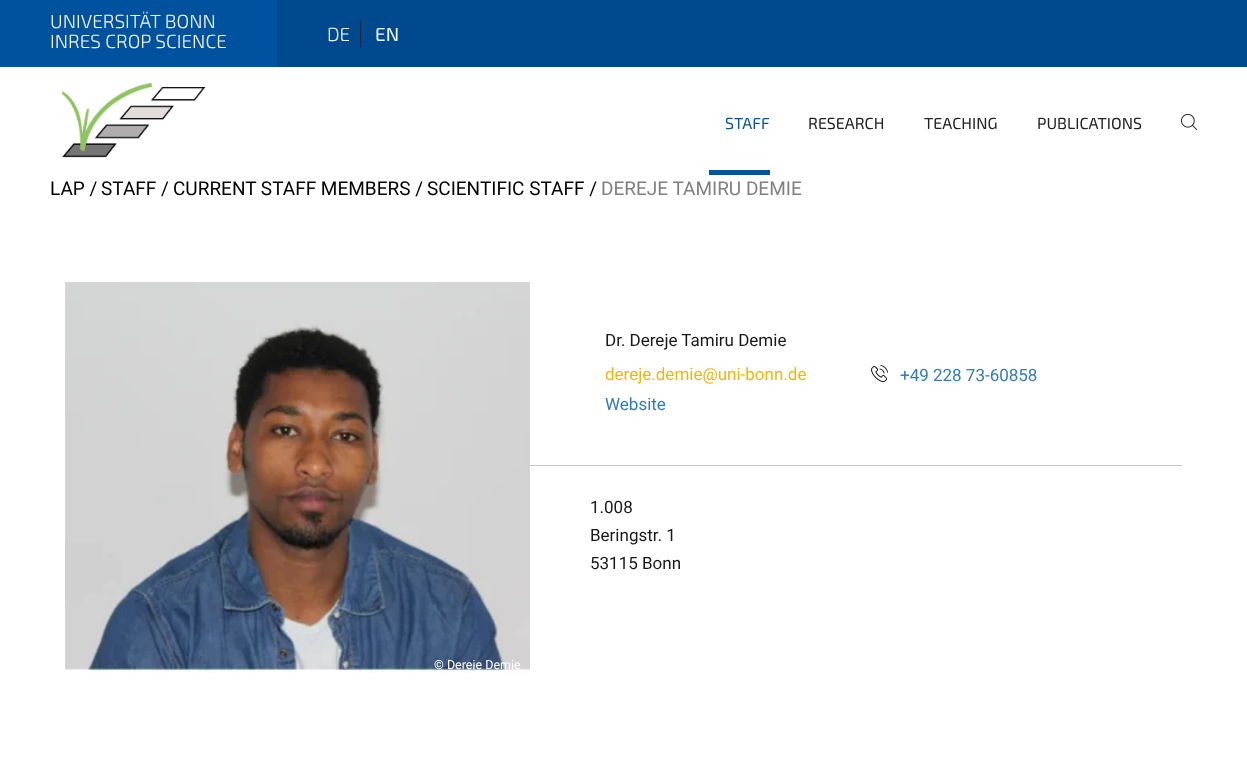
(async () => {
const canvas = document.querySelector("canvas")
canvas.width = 1247
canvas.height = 773
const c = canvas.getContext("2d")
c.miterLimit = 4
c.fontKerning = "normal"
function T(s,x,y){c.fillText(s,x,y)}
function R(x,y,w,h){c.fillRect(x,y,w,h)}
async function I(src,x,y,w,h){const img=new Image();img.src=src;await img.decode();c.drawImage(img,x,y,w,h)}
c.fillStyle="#fff"
R(0,0,1247,773)
c.fillStyle="#00498f"
R(277,0,970,67)
c.fillStyle="#00529f"
R(0,0,277,67)
c.font="300 19px 'Exo 2'"
c.fillStyle="#f6f7f9"
T("UNIVERSITÄT BONN",50,28)
T("INRES CROP SCIENCE",50,48)
c.fillStyle="#012548"
R(360,20,1,27)
c.fillStyle="#f6f7f9"
T("DE",327,41)
c.font="19px 'Exo 2'"
T("EN",375,41)
await I("1.png",61,82,145,76)
c.fillStyle="#07529a"
R(709,170,61,5)
c.font="16px 'Exo 2'"
T("STAFF",725,129)
c.fillStyle="#222"
T("RESEARCH",808,129)
T("TEACHING",924,129)
T("PUBLICATIONS",1037,129)
await I("2.png",1181,113,17,17)
c.font="19px Roboto"
c.fillStyle="#000"
T("LAP /",50,195)
T("STAFF /",101,195)
T("CURRENT STAFF MEMBERS /",173,195)
T("SCIENTIFIC STAFF /",427,195)
c.fillStyle="#808080"
T("DEREJE TAMIRU DEMIE",601,195)
c.font="17px Roboto"
c.fillStyle="#1a181b"
T("Dr. Dereje Tamiru Demie",605,346)
c.fillStyle="#eab90c"
T("dereje.demie@uni-bonn.de",605,380)
await I("3.png",871,365,17,18)
c.fillStyle="#337ab7"
T("+49 228 73-60858",900,381)
T("Website",605,410)
c.fillStyle="#c6c6c8"
R(530,465,652,1)
c.fillStyle="#1a181b"
T("1.008",590,513)
T("Beringstr. 1",590,541)
T("53115 Bonn",590,569)
await I("4.png",65,282,465,391)
c.font="12.5px Roboto"
c.fillStyle="#fff"
T("© Dereje Demie",434,669)
})()
